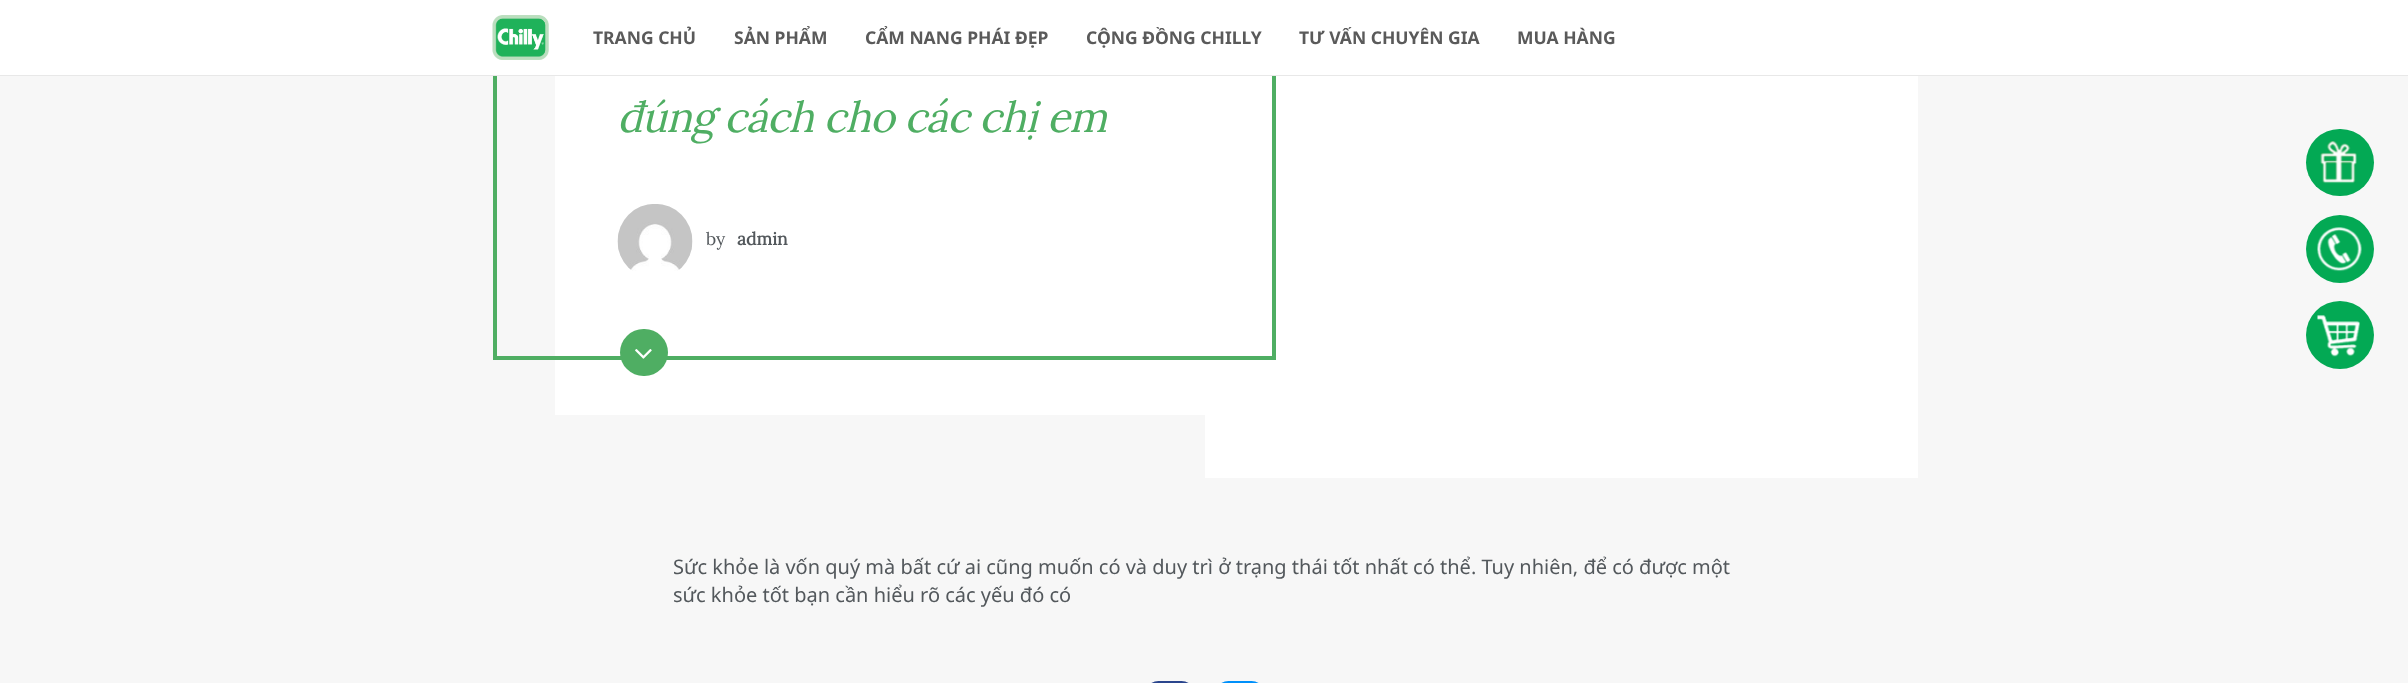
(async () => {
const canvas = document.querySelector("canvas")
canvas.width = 2408
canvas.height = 683
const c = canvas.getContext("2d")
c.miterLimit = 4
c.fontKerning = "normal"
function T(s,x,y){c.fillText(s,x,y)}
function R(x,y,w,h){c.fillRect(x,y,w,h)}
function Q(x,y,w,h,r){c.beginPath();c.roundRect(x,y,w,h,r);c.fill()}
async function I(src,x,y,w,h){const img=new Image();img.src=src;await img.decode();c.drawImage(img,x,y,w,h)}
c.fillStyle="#f7f7f7"
R(0,0,2408,683)
c.fillStyle="#fff"
R(555,76,650,339)
await I("2.png",617,204,76,67)
R(1205,76,713,402)
c.strokeStyle="#4fae63"
c.lineWidth=4
c.strokeRect(495,-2,779,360)
R(0,0,2408,75)
c.fillStyle="#e8e8e8"
R(0,75,2408,1)
await I("1.png",492,15,57,45)
c.font="bold 17.5px Noto Sans"
c.fillStyle="#5a5a5a"
T("TRANG CHỦ",593,44)
T("SẢN PHẨM",734,44)
T("CẨM NANG PHÁI ĐẸP",865,44)
T("CỘNG ĐỒNG CHILLY",1086,44)
T("TƯ VẤN CHUYÊN GIA",1299,44)
T("MUA HÀNG",1517,44)
c.letterSpacing="-0.85px"
c.font="italic 42.5px Lora"
c.fillStyle="#4fae63"
T("đúng cách cho các chị em",617,132)
c.letterSpacing="0px"
c.font="17.5px Lora"
c.fillStyle="#53585c"
T("by",706,245)
c.font="bold 17.5px Lora"
T("admin",737,245)
c.fillStyle="#4fae63"
Q(620,329,48,47,23.5)
await I("3.png",635,349,17,10)
c.font="20px Noto Sans"
c.fillStyle="#53585c"
T("Sức khỏe là vốn quý mà bất cứ ai cũng muốn có và duy trì ở trạng thái tốt nhất có thể. Tuy nhiên, để có được một",673,574)
T("sức khỏe tốt bạn cần hiểu rõ các yếu đó có",673,602)
c.fillStyle="#2a458d"
Q(1145,681,50,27,25)
c.fillStyle="#0090fa"
Q(1215,681,50,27,25)
c.fillStyle="#03a954"
Q(2306,129,68,67,33.5)
await I("4.png",2320,141,37,43)
c.beginPath()
c.arc(2340,249,34,0,7)
c.fill()
await I("5.png",2317,227,45,45)
c.beginPath()
c.arc(2340,335,34,0,7)
c.fill()
await I("6.png",2317,315,43,42)
})()
